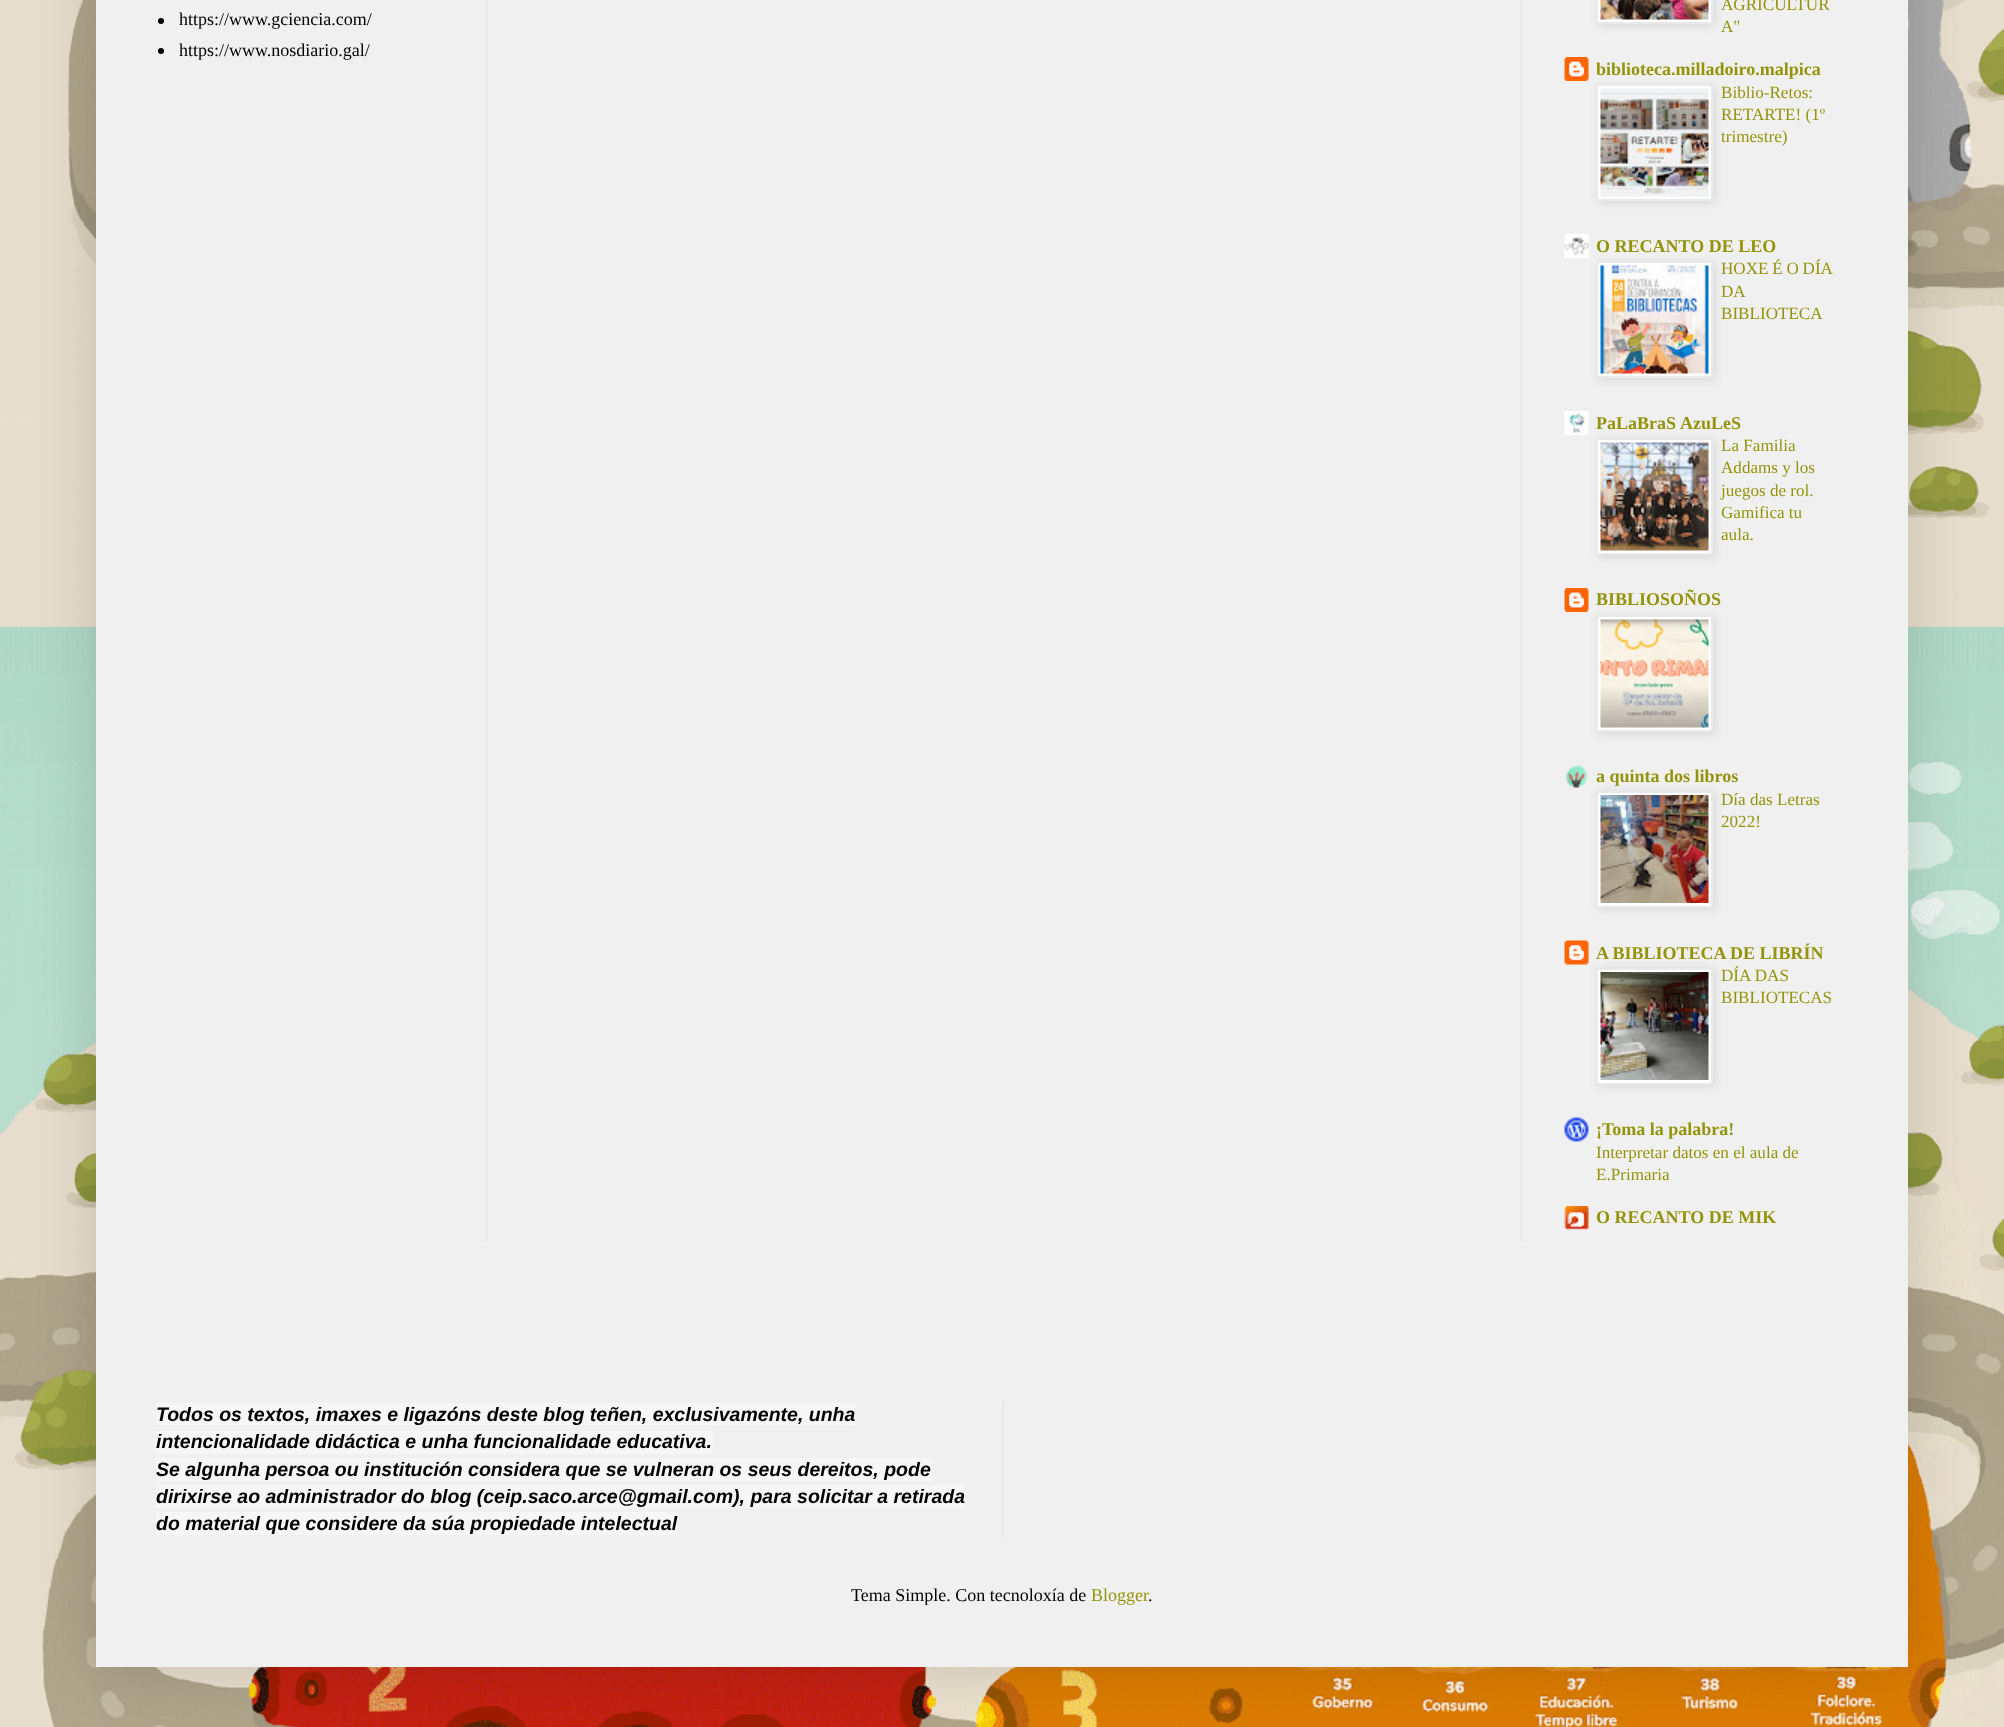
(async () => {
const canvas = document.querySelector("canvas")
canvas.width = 2004
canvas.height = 1727
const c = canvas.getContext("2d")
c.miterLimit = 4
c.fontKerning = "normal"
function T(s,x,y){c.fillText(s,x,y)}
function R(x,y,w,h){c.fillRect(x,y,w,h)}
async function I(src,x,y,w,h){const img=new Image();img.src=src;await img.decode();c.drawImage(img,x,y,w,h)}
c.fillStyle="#fff"
R(0,0,2004,1727)
await I("1.png",0,0,2004,1727)
c.fillStyle="#00000026"
c.filter="blur(30px)"
c.beginPath()
c.rect(96,-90,1812,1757)
c.fill()
c.filter="none"
c.fillStyle="#f0f0f0"
R(96,0,1812,1667)
c.fillStyle="#000"
c.beginPath()
c.arc(161,21,3,0,7)
c.fill()
c.font="18px Liberation Serif"
T("https://www.gciencia.com/",179,25)
c.beginPath()
c.arc(161,51,3,0,7)
c.fill()
T("https://www.nosdiario.gal/",179,56)
c.fillStyle="#0000001a"
c.filter="blur(4px)"
c.beginPath()
c.rect(1598,-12,117,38)
c.fill()
c.filter="none"
c.fillStyle="#fff"
c.beginPath()
c.rect(1597,-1,115,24)
c.fill()
c.strokeStyle="#e9e9e9"
c.lineWidth=2
c.stroke()
await I("2.png",1600,0,109,20)
c.font="17.1px Liberation Serif"
c.fillStyle="#94940c"
T("AGRICULTUR",1721,10)
T("A\"",1721,32)
await I("3.png",1564,57,25,24)
c.font="bold 18px Liberation Serif"
T("biblioteca.milladoiro.malpica",1596,75)
c.fillStyle="#0000001a"
c.filter="blur(4px)"
c.beginPath()
c.rect(1598,86,117,117)
c.fill()
c.filter="none"
c.fillStyle="#fff"
c.beginPath()
c.rect(1597,85,115,115)
c.fill()
c.stroke()
await I("4.png",1600,88,109,109)
c.font="17.1px Liberation Serif"
c.fillStyle="#94940c"
T("Biblio-Retos:",1721,98)
T("RETARTE! (1º",1721,120)
T("trimestre)",1721,142)
await I("5.png",1564,234,25,24)
c.font="bold 18px Liberation Serif"
T("O RECANTO DE LEO",1596,252)
c.fillStyle="#0000001a"
c.filter="blur(4px)"
c.beginPath()
c.rect(1598,263,117,117)
c.fill()
c.filter="none"
c.fillStyle="#fff"
c.beginPath()
c.rect(1597,262,115,115)
c.fill()
c.stroke()
await I("6.png",1600,265,109,109)
c.wordSpacing="-0.5px"
c.font="17.1px Liberation Serif"
c.fillStyle="#94940c"
T("HOXE É O DÍA",1721,274)
c.wordSpacing="0px"
T("DA",1721,297)
T("BIBLIOTECA",1721,319)
await I("7.png",1564,411,25,24)
c.font="bold 18px Liberation Serif"
T("PaLaBraS",1596,429)
T("AzuLeS",1680,429)
c.fillStyle="#0000001a"
c.filter="blur(4px)"
c.beginPath()
c.rect(1598,440,117,117)
c.fill()
c.filter="none"
c.fillStyle="#fff"
c.beginPath()
c.rect(1597,439,115,115)
c.fill()
c.stroke()
await I("8.png",1600,442,109,109)
c.font="17.1px Liberation Serif"
c.fillStyle="#94940c"
T("La Familia",1721,451)
T("Addams y los",1721,473)
T("juegos de rol.",1721,496)
T("Gamifica tu",1721,518)
T("aula.",1721,540)
await I("3.png",1564,588,25,24)
c.font="bold 18px Liberation Serif"
T("BIBLIOSOÑOS",1596,605)
c.fillStyle="#0000001a"
c.filter="blur(4px)"
c.beginPath()
c.rect(1598,617,117,117)
c.fill()
c.filter="none"
c.fillStyle="#fff"
c.beginPath()
c.rect(1597,616,115,115)
c.fill()
c.stroke()
await I("9.png",1600,619,109,109)
await I("10.png",1565,764,23,24)
c.fillStyle="#94940c"
T("a quinta dos libros",1596,782)
c.fillStyle="#0000001a"
c.filter="blur(4px)"
c.beginPath()
c.rect(1598,792,117,117)
c.fill()
c.filter="none"
c.fillStyle="#fff"
c.beginPath()
c.rect(1597,792,115,115)
c.fill()
c.stroke()
await I("11.png",1600,795,109,108)
c.font="17.1px Liberation Serif"
c.fillStyle="#94940c"
T("Día das Letras",1721,805)
T("2022!",1721,827)
await I("12.png",1564,940,25,25)
c.font="bold 18px Liberation Serif"
T("A BIBLIOTECA DE LIBRÍN",1596,959)
c.fillStyle="#0000001a"
c.filter="blur(4px)"
c.beginPath()
c.rect(1598,969,117,117)
c.fill()
c.filter="none"
c.fillStyle="#fff"
c.beginPath()
c.rect(1597,969,115,115)
c.fill()
c.stroke()
await I("13.png",1600,972,109,108)
c.font="17.1px Liberation Serif"
c.fillStyle="#94940c"
T("DÍA DAS",1721,981)
T("BIBLIOTECAS",1721,1003)
await I("14.png",1564,1117,25,25)
c.font="bold 18px Liberation Serif"
T("¡Toma la palabra!",1596,1135)
c.font="17.1px Liberation Serif"
T("Interpretar datos en el aula de",1596,1158)
T("E.Primaria",1596,1180)
await I("15.png",1564,1206,25,24)
c.font="bold 18px Liberation Serif"
T("O RECANTO DE MIK",1596,1223)
c.fillStyle="#e9e9e9"
R(486,0,2,1242)
R(1520,0,2,1242)
c.fillStyle="#f6f6f6"
R(156,1403,699,22)
c.font="italic bold 19.5px Liberation Sans"
c.fillStyle="#000"
T("Todos os textos, imaxes e ligazóns deste blog teñen, exclusivamente, unha",156,1421)
c.fillStyle="#f6f6f6"
R(156,1431,557,23)
c.fillStyle="#000"
T("intencionalidade didáctica e unha funcionalidade educativa.",156,1448)
c.fillStyle="#f6f6f6"
R(156,1458,776,23)
c.fillStyle="#000"
T("Se algunha persoa ou institución considera que se vulneran os seus dereitos, pode",156,1476)
c.fillStyle="#f6f6f6"
R(156,1485,809,23)
c.fillStyle="#000"
T("dirixirse ao administrador do blog (ceip.saco.arce@gmail.com), para solicitar a retirada",156,1503)
c.fillStyle="#f6f6f6"
R(156,1512,521,23)
c.fillStyle="#000"
T("do material que considere da súa propiedade intelectual",156,1530)
c.fillStyle="#e9e9e9"
R(1002,1401,2,137)
c.font="18px Liberation Serif"
c.fillStyle="#000"
T("Tema Simple. Con tecnoloxía de",851,1601)
c.fillStyle="#94940c"
T("Blogger",1091,1601)
c.fillStyle="#000"
T(".",1148,1601)
})()
